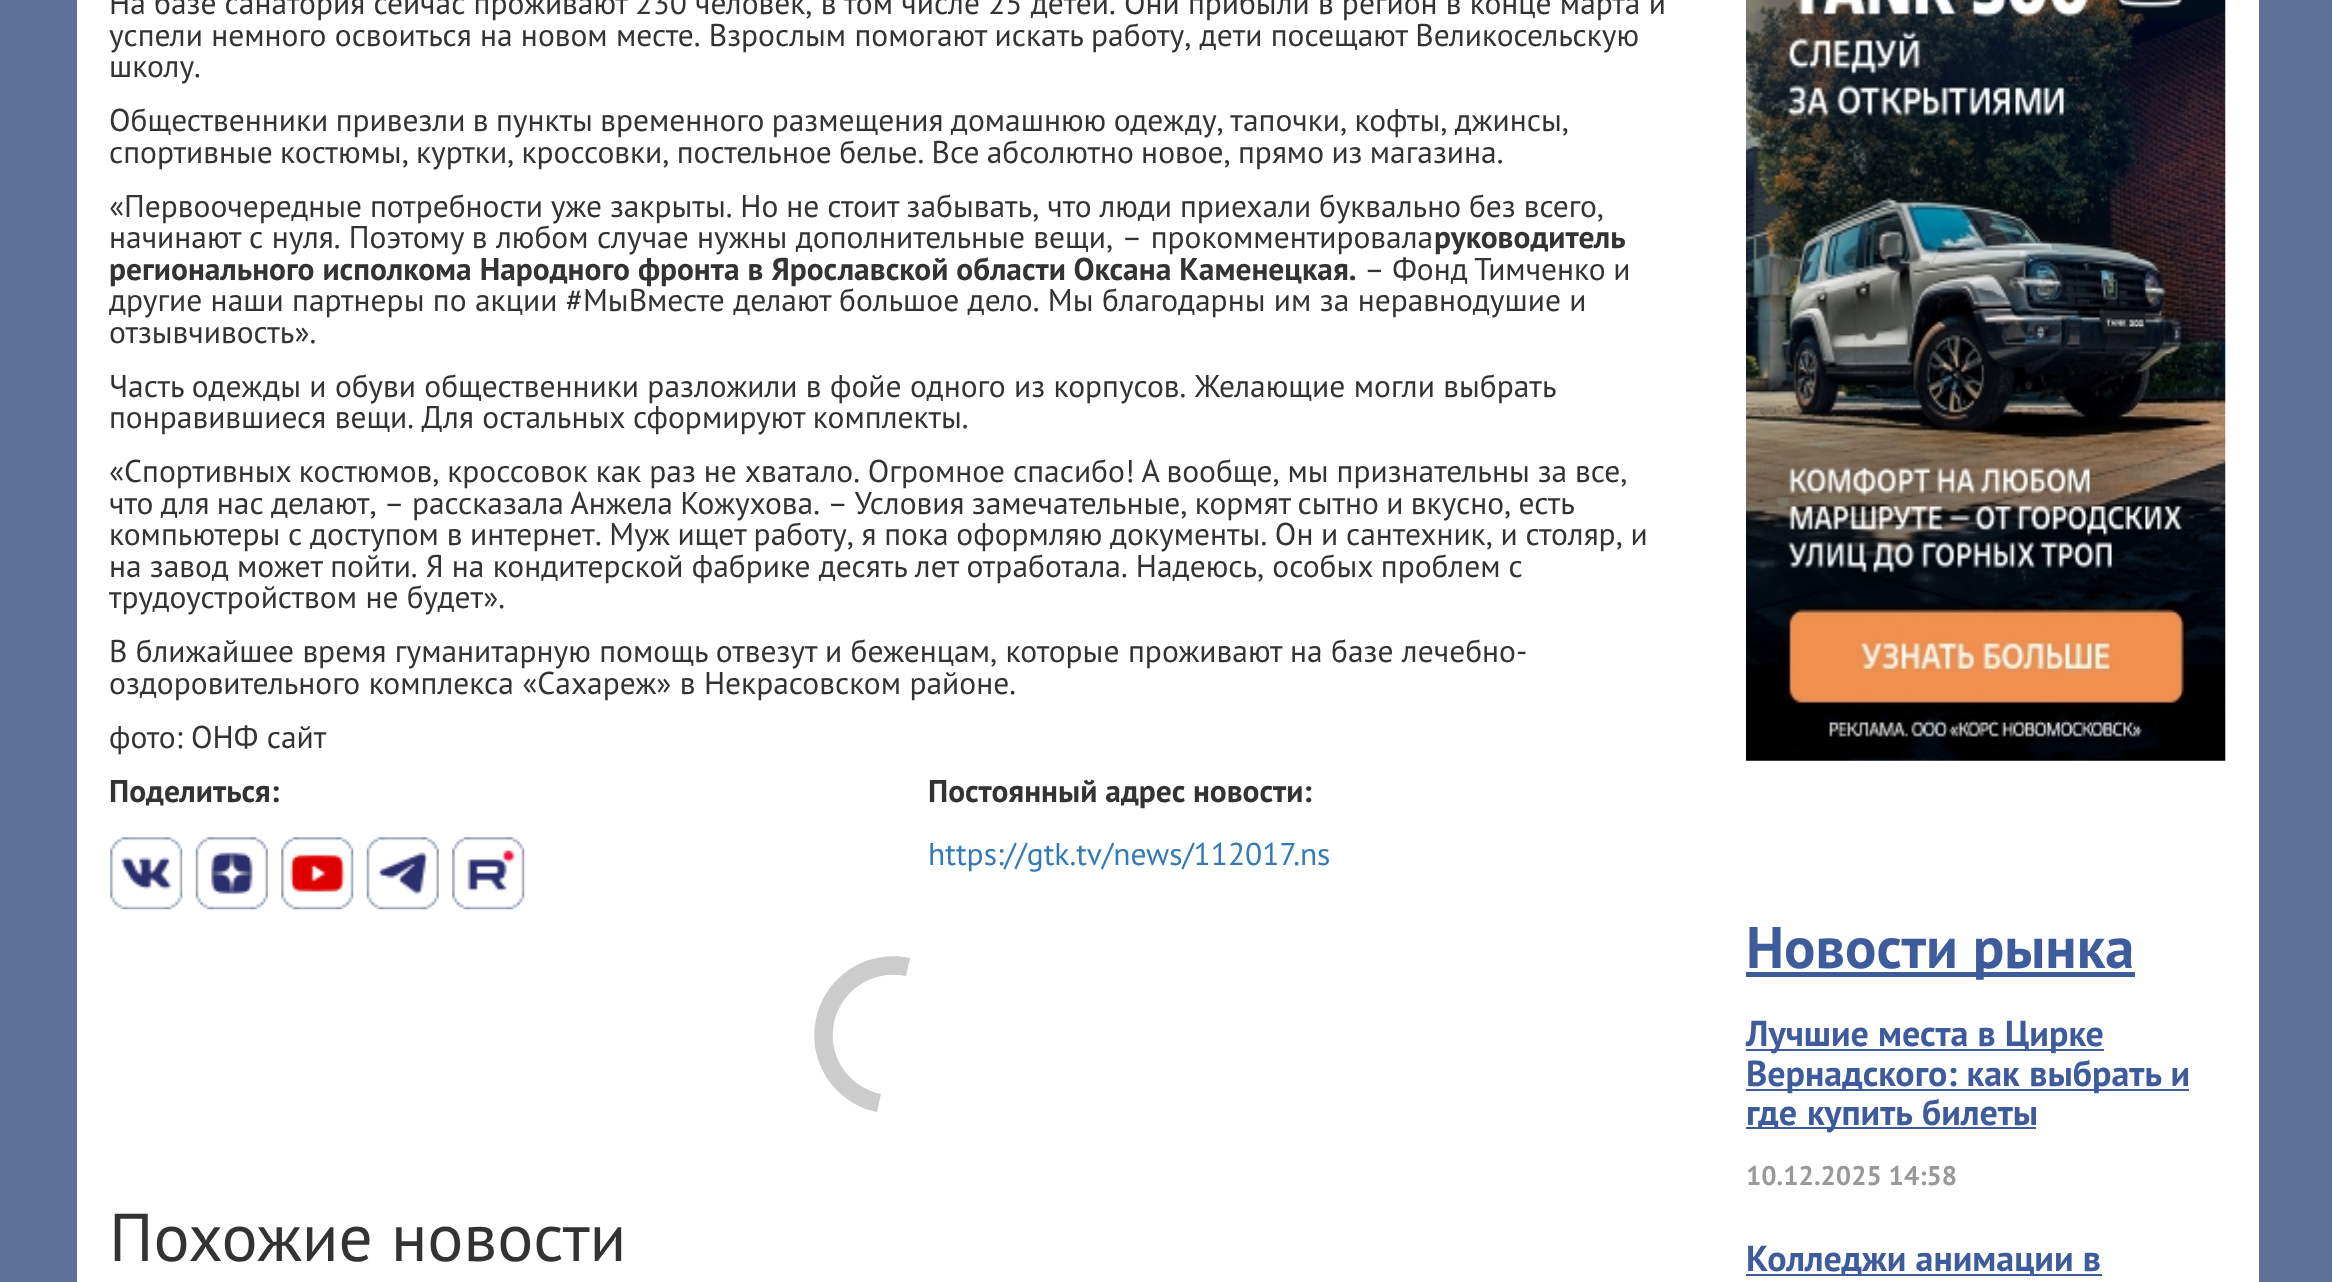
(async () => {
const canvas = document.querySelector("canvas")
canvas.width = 2332
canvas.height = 1282
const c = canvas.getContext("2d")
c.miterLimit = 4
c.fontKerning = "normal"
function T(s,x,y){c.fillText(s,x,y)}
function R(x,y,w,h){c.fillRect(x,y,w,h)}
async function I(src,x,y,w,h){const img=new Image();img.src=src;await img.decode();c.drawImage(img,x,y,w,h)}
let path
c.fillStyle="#5d7098"
R(0,0,2332,1282)
c.fillStyle="#fff"
R(77,0,2182,1282)
c.wordSpacing="-0.2px"
c.font="31.5px PT Sans"
c.fillStyle="#333"
T("На базе санатория сейчас проживают 230 человек, в том числе 25 детей. Они прибыли в регион в конце марта и",109,14)
c.wordSpacing="-0.1px"
T("успели немного освоиться на новом месте. Взрослым помогают искать работу, дети посещают Великосельскую",109,46)
c.wordSpacing="0px"
T("школу.",109,77)
c.wordSpacing="-1px"
T("Общественники привезли в пункты временного размещения домашнюю одежду, тапочки, кофты, джинсы,",109,131)
c.wordSpacing="-1.1px"
T("спортивные костюмы, куртки, кроссовки, постельное белье. Все абсолютно новое, прямо из магазина.",109,163)
c.wordSpacing="-0.5px"
T("«Первоочередные потребности уже закрыты. Но не стоит забывать, что люди приехали буквально без всего,",109,217)
c.wordSpacing="0px"
T("начинают с нуля. Поэтому в любом случае нужны дополнительные вещи, – прокомментировала",109,248)
c.font="bold 31.5px PT Sans"
T("руководитель",1434,248)
T("регионального исполкома Народного фронта в Ярославской области Оксана Каменецкая.",109,280)
c.wordSpacing="-1px"
c.font="31.5px PT Sans"
T("– Фонд Тимченко и",1364,280)
c.wordSpacing="0px"
T("другие наши партнеры по акции #МыВместе делают большое дело. Мы благодарны им за неравнодушие и",109,311)
T("отзывчивость».",109,343)
T("Часть одежды и обуви общественники разложили в фойе одного из корпусов. Желающие могли выбрать",109,397)
T("понравившиеся вещи. Для остальных сформируют комплекты.",109,428)
c.wordSpacing="-0.5px"
T("«Спортивных костюмов, кроссовок как раз не хватало. Огромное спасибо! А вообще, мы признательны за все,",109,482)
c.wordSpacing="-1.1px"
T("что для нас делают, – рассказала Анжела Кожухова. – Условия замечательные, кормят сытно и вкусно, есть",109,514)
c.wordSpacing="-0.7px"
T("компьютеры с доступом в интернет. Муж ищет работу, я пока оформляю документы. Он и сантехник, и столяр, и",109,545)
c.wordSpacing="-0.25px"
T("на завод может пойти. Я на кондитерской фабрике десять лет отработала. Надеюсь, особых проблем с",109,577)
c.wordSpacing="0px"
T("трудоустройством не будет».",109,608)
T("В ближайшее время гуманитарную помощь отвезут и беженцам, которые",109,662)
T("проживают на базе лечебно-",1128,662)
T("оздоровительного комплекса «Сахареж» в Некрасовском районе.",109,694)
T("фото: ОНФ сайт",109,748)
c.font="bold 31.5px PT Sans"
T("Поделиться:",109,802)
await I("1.png",110,837,73,73)
await I("2.png",195,837,73,73)
await I("3.png",281,837,73,73)
await I("4.png",366,837,73,73)
await I("5.png",452,837,73,73)
T("Постоянный адрес новости:",928,802)
c.font="31.5px PT Sans"
c.fillStyle="#337ab7"
T("https://gtk.tv/news/112017.ns",928,865)
c.fillStyle="#ccc"
path = new Path2D("M910 958c-43-9-85 18-94 61c-9 42 18 84 61 93l4-18c-33-7-54-39-47-71c7-33 39-54 72-47z")
c.fill(path)
c.font="67.5px PT Sans"
c.fillStyle="#333"
T("Похожие новости",109,1261)
await I("6.png",1746,0,480,761)
c.fillStyle="#3e5b9b"
R(1746,972,389,5)
c.font="bold 58.5px PT Sans"
T("Новости рынка",1746,968)
R(1746,1049,358,2)
c.font="bold 36px PT Sans"
T("Лучшие места в Цирке",1746,1046)
R(1746,1089,443,2)
c.wordSpacing="0.5px"
T("Вернадского: как выбрать и",1746,1086)
R(1746,1127,290,2)
c.wordSpacing="1px"
T("где купить билеты",1746,1125)
c.wordSpacing="0px"
c.font="bold 27px PT Sans"
c.fillStyle="#999"
T("10.12.2025 14:58",1746,1185)
c.fillStyle="#3e5b9b"
R(1746,1274,356,2)
c.font="bold 36px PT Sans"
T("Колледжи анимации в",1746,1271)
})()
